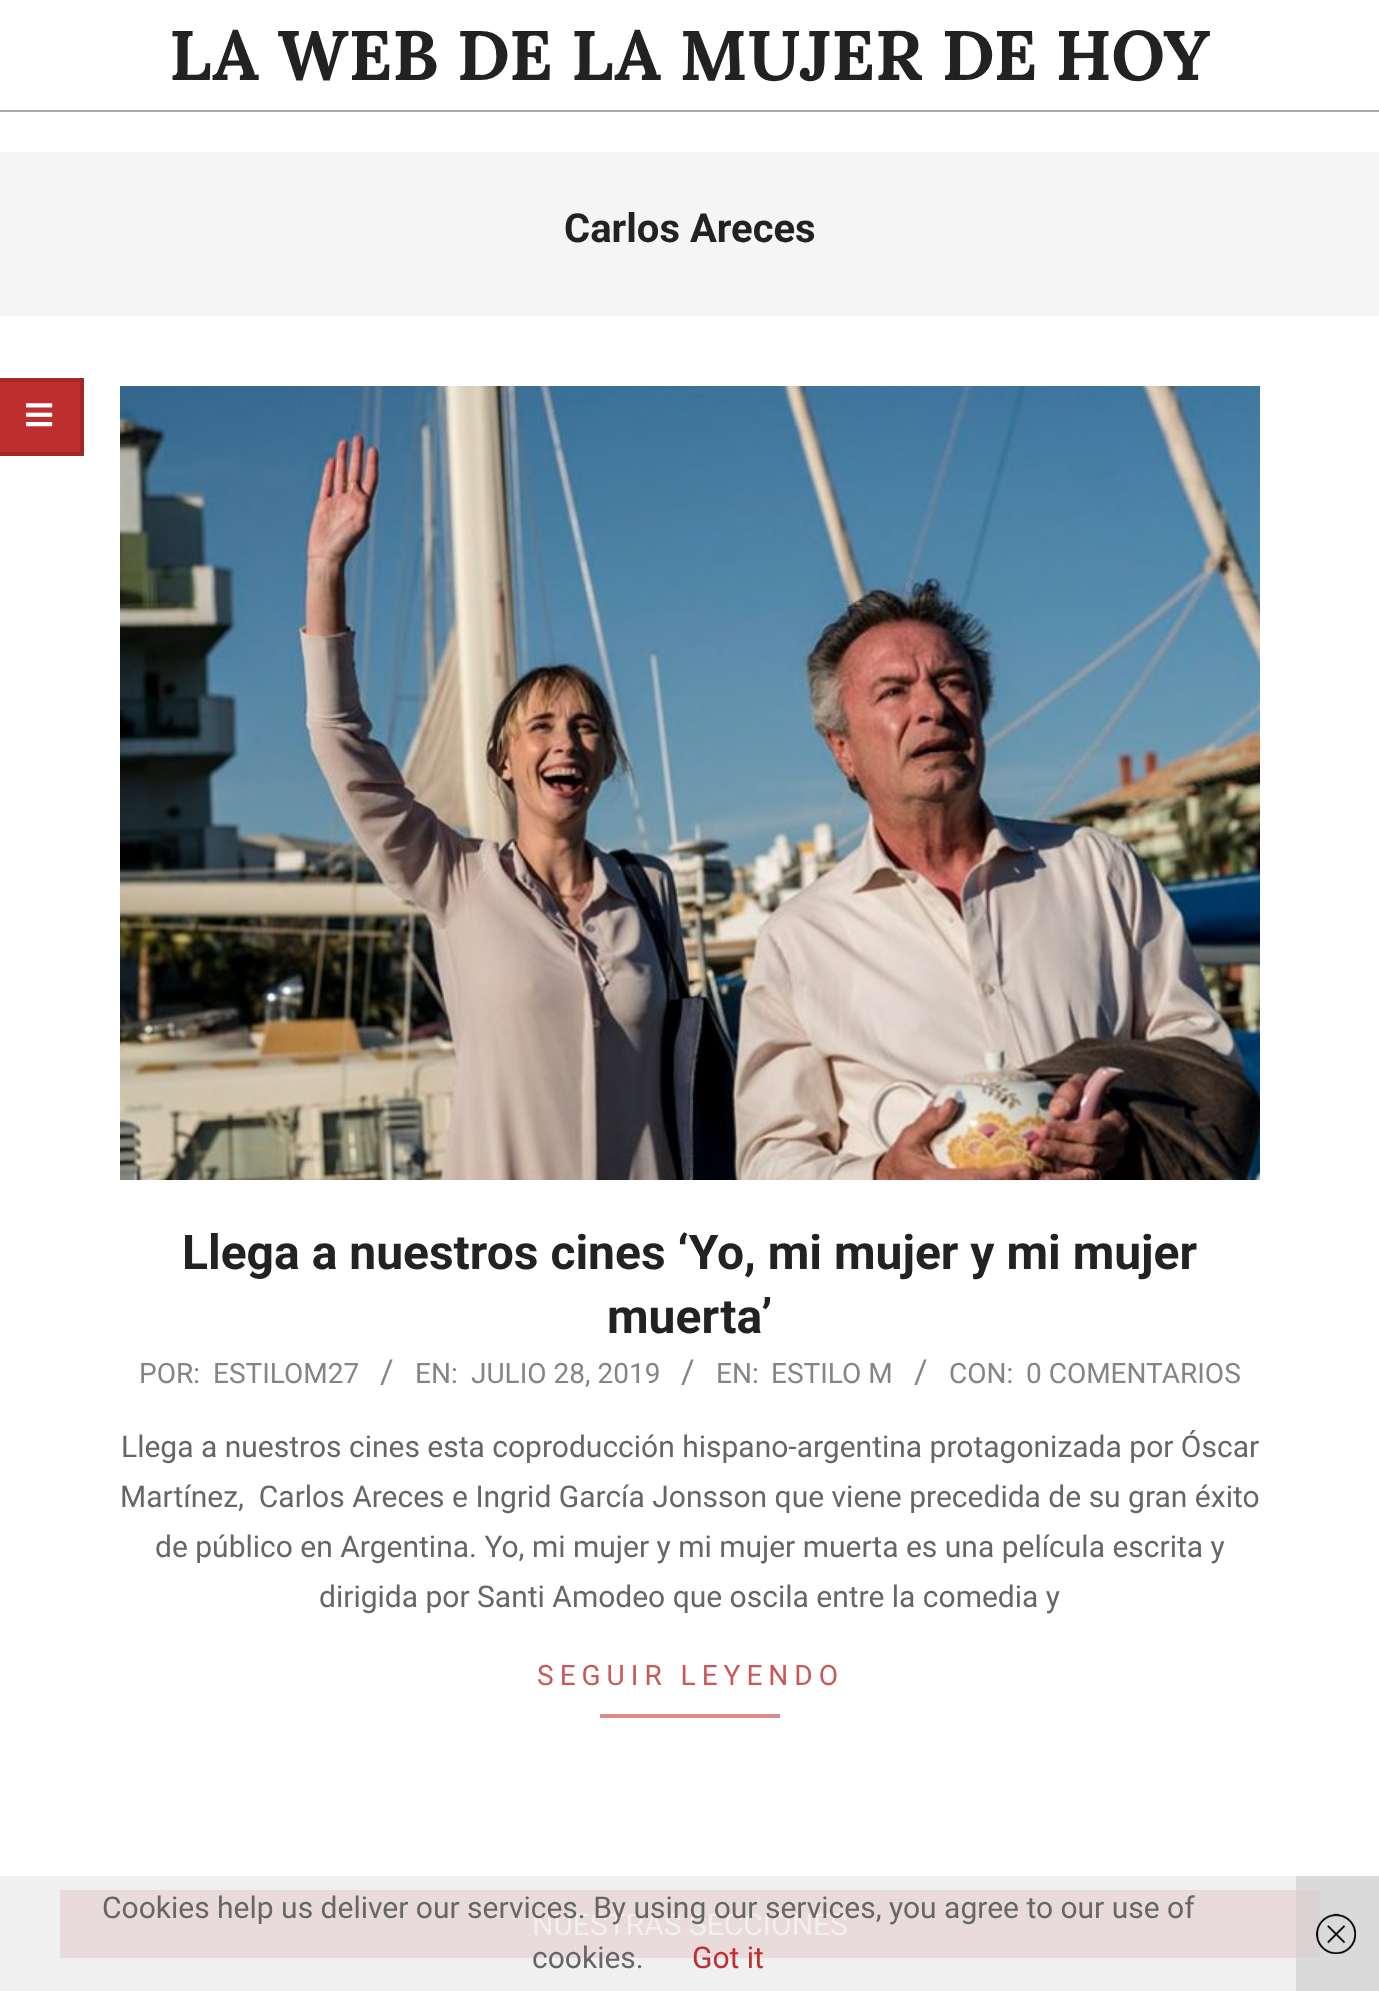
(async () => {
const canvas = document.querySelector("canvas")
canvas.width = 1379
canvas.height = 1991
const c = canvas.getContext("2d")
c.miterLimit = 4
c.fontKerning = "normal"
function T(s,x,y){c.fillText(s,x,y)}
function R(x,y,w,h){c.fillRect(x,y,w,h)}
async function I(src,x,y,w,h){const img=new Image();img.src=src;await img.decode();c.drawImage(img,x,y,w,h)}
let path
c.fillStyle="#fff"
R(0,0,1379,1991)
c.fillStyle="#f0f0f0"
R(0,1876,1296,115)
c.fillStyle="#dadada"
R(1296,1876,83,115)
c.font="bold 70px Lora"
c.fillStyle="#222"
T("LA WEB DE LA MUJER DE HOY",169,80)
c.fillStyle="#ababab"
R(0,110,1379,2)
c.fillStyle="#bd2e2e"
R(0,378,84,78)
c.fillStyle="#a32828"
path = new Path2D("M0 378h84l-4 4h-80z")
c.fill(path)
c.fillStyle="#00000024"
path = new Path2D("M84 378v78l-4-4v-70z")
c.fill(path)
path = new Path2D("M84 456h-84v-4h80z")
c.fill(path)
await I("1.png",26,403,27,24)
c.fillStyle="#f5f5f5"
R(0,152,1379,164)
c.font="bold 40px Roboto"
c.fillStyle="#222"
T("Carlos Areces",564,242)
await I("2.png",120,386,1140,794)
c.font="bold 48px Roboto"
T("Llega a nuestros cines ‘Yo, mi mujer y mi mujer",182,1269)
T("muerta’",607,1333)
c.font="28px Roboto"
c.fillStyle="#858585"
T("POR:",139,1383)
T("ESTILOM27",213,1383)
c.font="33px Roboto"
T("/",380,1383)
c.font="28px Roboto"
T("EN:",415,1383)
T("JULIO 28, 2019",471,1383)
c.font="33px Roboto"
T("/",681,1383)
c.font="28px Roboto"
T("EN:",716,1383)
T("ESTILO M",771,1383)
c.font="33px Roboto"
T("/",914,1383)
c.font="28px Roboto"
T("CON:",949,1383)
T("0 COMENTARIOS",1026,1383)
c.font="30px Roboto"
c.fillStyle="#666"
T("Llega a nuestros cines esta coproducción hispano-argentina protagonizada por Óscar",121,1457)
T("Martínez,  Carlos Areces e Ingrid García Jonsson que viene precedida de su gran éxito",120,1507)
T("de público en Argentina. Yo, mi mujer y mi mujer muerta es una película escrita y",155,1557)
T("dirigida por Santi Amodeo que oscila entre la comedia y",319,1607)
c.letterSpacing="6px"
c.font="28px Roboto"
c.fillStyle="#ca5858"
T("SEGUIR LEYENDO",537,1685)
c.fillStyle="#da8a8a"
R(600,1714,180,4)
c.fillStyle="#e9dbdb"
R(60,1890,1236,68)
c.fillStyle="#d8d2d2"
R(1296,1890,24,68)
c.letterSpacing="0px"
c.font="30px Roboto"
c.fillStyle="#f0f0f0"
T("NUESTRAS SECCIONES",532,1935)
c.fillStyle="#666"
T("Cookies help us deliver our services. By using our services, you agree to our use of",102,1918)
T("cookies.",532,1968)
c.fillStyle="#bd2e2e"
T("Got it",692,1968)
await I("3.png",1316,1913,40,41)
})()
